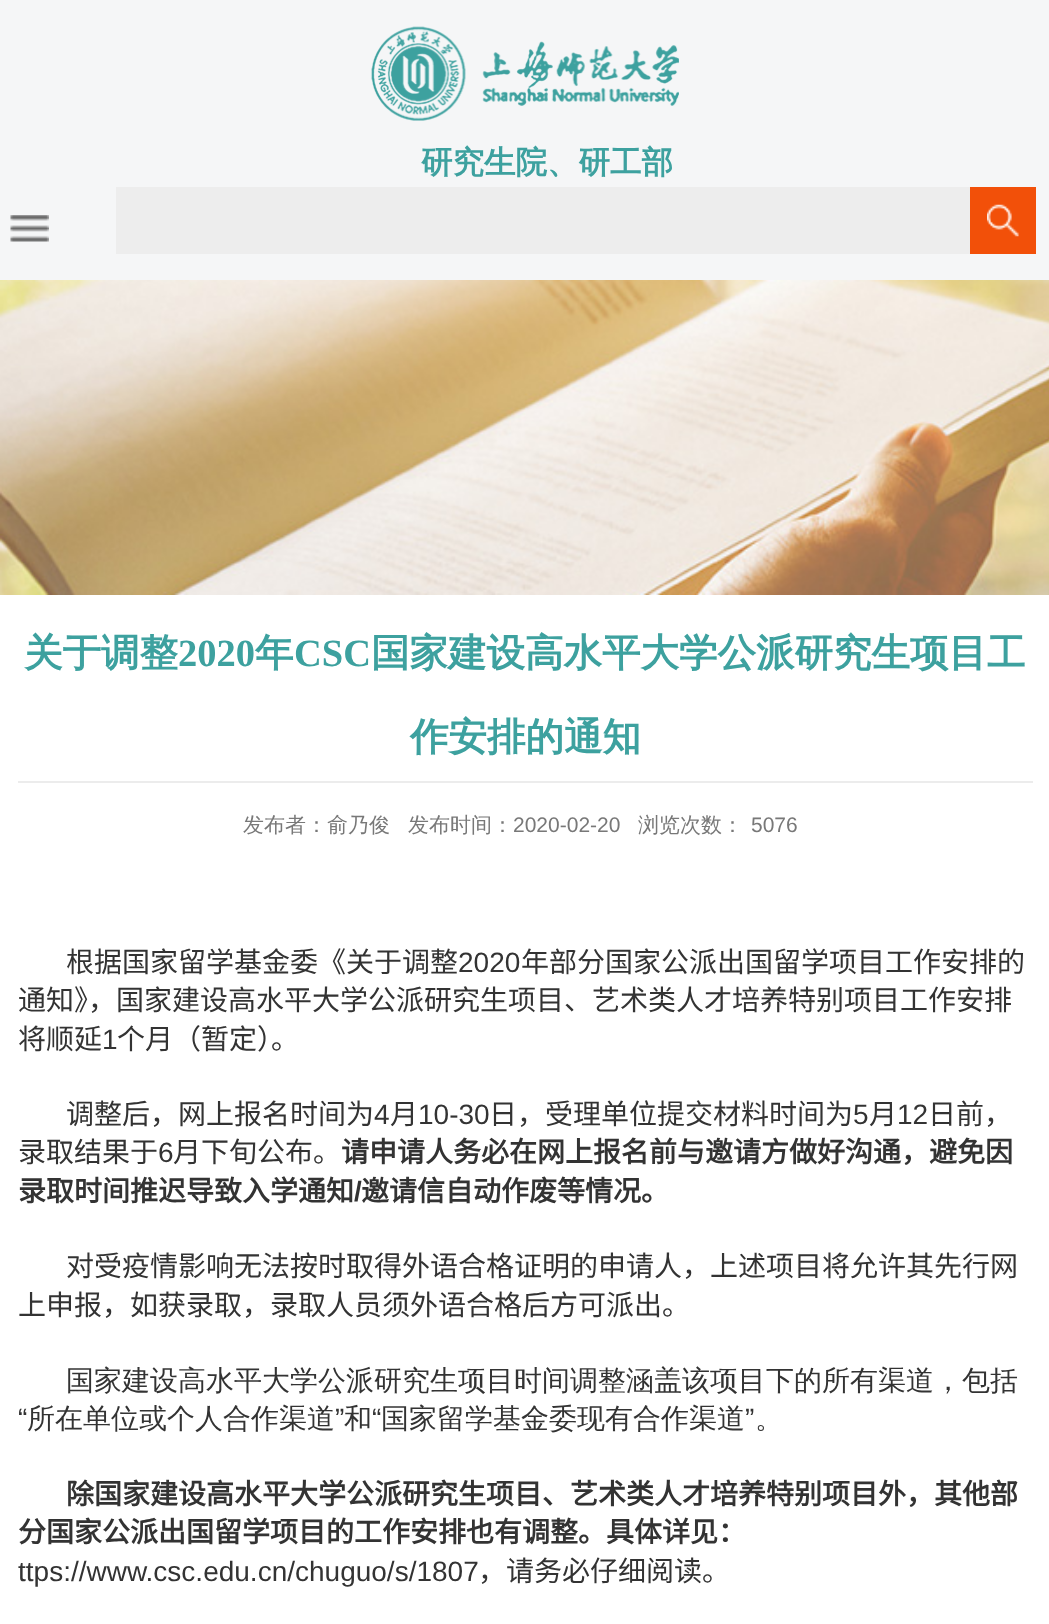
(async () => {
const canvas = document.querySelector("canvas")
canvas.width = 1049
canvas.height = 1624
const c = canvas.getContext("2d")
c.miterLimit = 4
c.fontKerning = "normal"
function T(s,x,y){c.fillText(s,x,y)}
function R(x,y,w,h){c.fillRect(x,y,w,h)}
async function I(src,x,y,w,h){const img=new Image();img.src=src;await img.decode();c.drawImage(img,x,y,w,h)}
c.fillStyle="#fff"
R(0,0,1049,1624)
c.fillStyle="#f5f6f7"
R(0,0,1049,280)
await I("1.png",371,26,308,95)
c.font="bold 31.5px WenQuanYi Zen Hei"
c.fillStyle="#3da19f"
T("研究生院、研工部",421,173)
await I("2.png",10,215,39,27)
c.fillStyle="#ededed"
R(116,187,854,67)
c.fillStyle="#f25009"
R(970,187,66,67)
await I("3.png",987,204,32,33)
await I("4.png",0,280,1049,315)
c.font="bold 38.5px WenQuanYi Zen Hei"
c.fillStyle="#3da19f"
T("关于调整",24,666)
c.font="bold 38.5px Liberation Serif"
T("2020",178,666)
c.font="bold 38.5px WenQuanYi Zen Hei"
T("年",255,666)
c.font="bold 38.5px Liberation Serif"
T("CSC",294,666)
c.font="bold 38.5px WenQuanYi Zen Hei"
T("国家建设高水平大学公派研究生项目工",371,666)
T("作安排的通知",410,750)
c.fillStyle="#ececec"
R(18,781,1015,2)
c.font="500 21px WenQuanYi Zen Hei"
c.fillStyle="#787878"
T("发布者：俞乃俊",243,832)
T("发布时间：",408,832)
c.font="21px Liberation Sans"
T("2020-02-20",513,832)
c.font="500 21px WenQuanYi Zen Hei"
T("浏览次数：",638,832)
c.font="21px Liberation Sans"
T("5076",751,832)
c.font="28px Noto Sans CJK SC"
c.fillStyle="#333"
T("根据国家留学基金委《关于调整",66,972)
c.font="28px Liberation Sans"
T("2020",458,972)
c.font="28px Noto Sans CJK SC"
T("年部分国家公派出国留学项目工作安排的",521,972)
T("通知》，国家建设高水平大学公派研究生项目、艺术类人才培养特别项目工作安排",18,1010)
T("将顺延",18,1049)
c.font="28px Liberation Sans"
T("1",102,1049)
c.font="28px Noto Sans CJK SC"
T("个月（暂定）。",117,1049)
T("调整后，网上报名时间为",66,1124)
c.font="28px Liberation Sans"
T("4",374,1124)
c.font="28px Noto Sans CJK SC"
T("月",390,1124)
c.font="28px Liberation Sans"
T("10-30",418,1124)
c.font="28px Noto Sans CJK SC"
T("日，受理单位提交材料时间为",489,1124)
c.font="28px Liberation Sans"
T("5",853,1124)
c.font="28px Noto Sans CJK SC"
T("月",869,1124)
c.font="28px Liberation Sans"
T("12",897,1124)
c.font="28px Noto Sans CJK SC"
T("日前，",928,1124)
T("录取结果于",18,1162)
c.font="28px Liberation Sans"
T("6",158,1162)
c.font="28px Noto Sans CJK SC"
T("月下旬公布。",173,1162)
c.font="bold 28px Noto Sans CJK SC"
T("请申请人务必在网上报名前与邀请方做好沟通，避免因",341,1162)
T("录取时间推迟导致入学通知",18,1201)
c.font="bold 28px Liberation Sans"
T("/",354,1201)
c.font="bold 28px Noto Sans CJK SC"
T("邀请信自动作废等情况。",361,1201)
c.font="28px Noto Sans CJK SC"
T("对受疫情影响无法按时取得外语合格证明的申请人，上述项目将允许其先行网",66,1276)
T("上申报，如获录取，录取人员须外语合格后方可派出。",18,1315)
c.font="500 28px WenQuanYi Zen Hei"
T("国家建设高水平大学公派研究生项目时间调整涵盖该项目下的所有渠道，包括",66,1390)
c.font="28px Liberation Sans"
T("“",18,1428)
c.font="500 28px WenQuanYi Zen Hei"
T("所在单位或个人合作渠道",27,1428)
c.font="28px Liberation Sans"
T("”",335,1428)
c.font="500 28px WenQuanYi Zen Hei"
T("和",344,1428)
c.font="28px Liberation Sans"
T("“",372,1428)
c.font="500 28px WenQuanYi Zen Hei"
T("国家留学基金委现有合作渠道",381,1428)
c.font="28px Liberation Sans"
T("”",745,1428)
c.font="500 28px WenQuanYi Zen Hei"
T("。",755,1428)
c.font="bold 28px Noto Sans CJK SC"
T("除国家建设高水平大学公派研究生项目、艺术类人才培养特别项目外，其他部",66,1504)
T("分国家公派出国留学项目的工作安排也有调整。具体详见：",18,1542)
c.font="28px Liberation Sans"
T("ttps://www.csc.edu.cn/chuguo/s/1807",18,1581)
c.font="28px Noto Sans CJK SC"
T("，请务必仔细阅读。",478,1581)
})()
